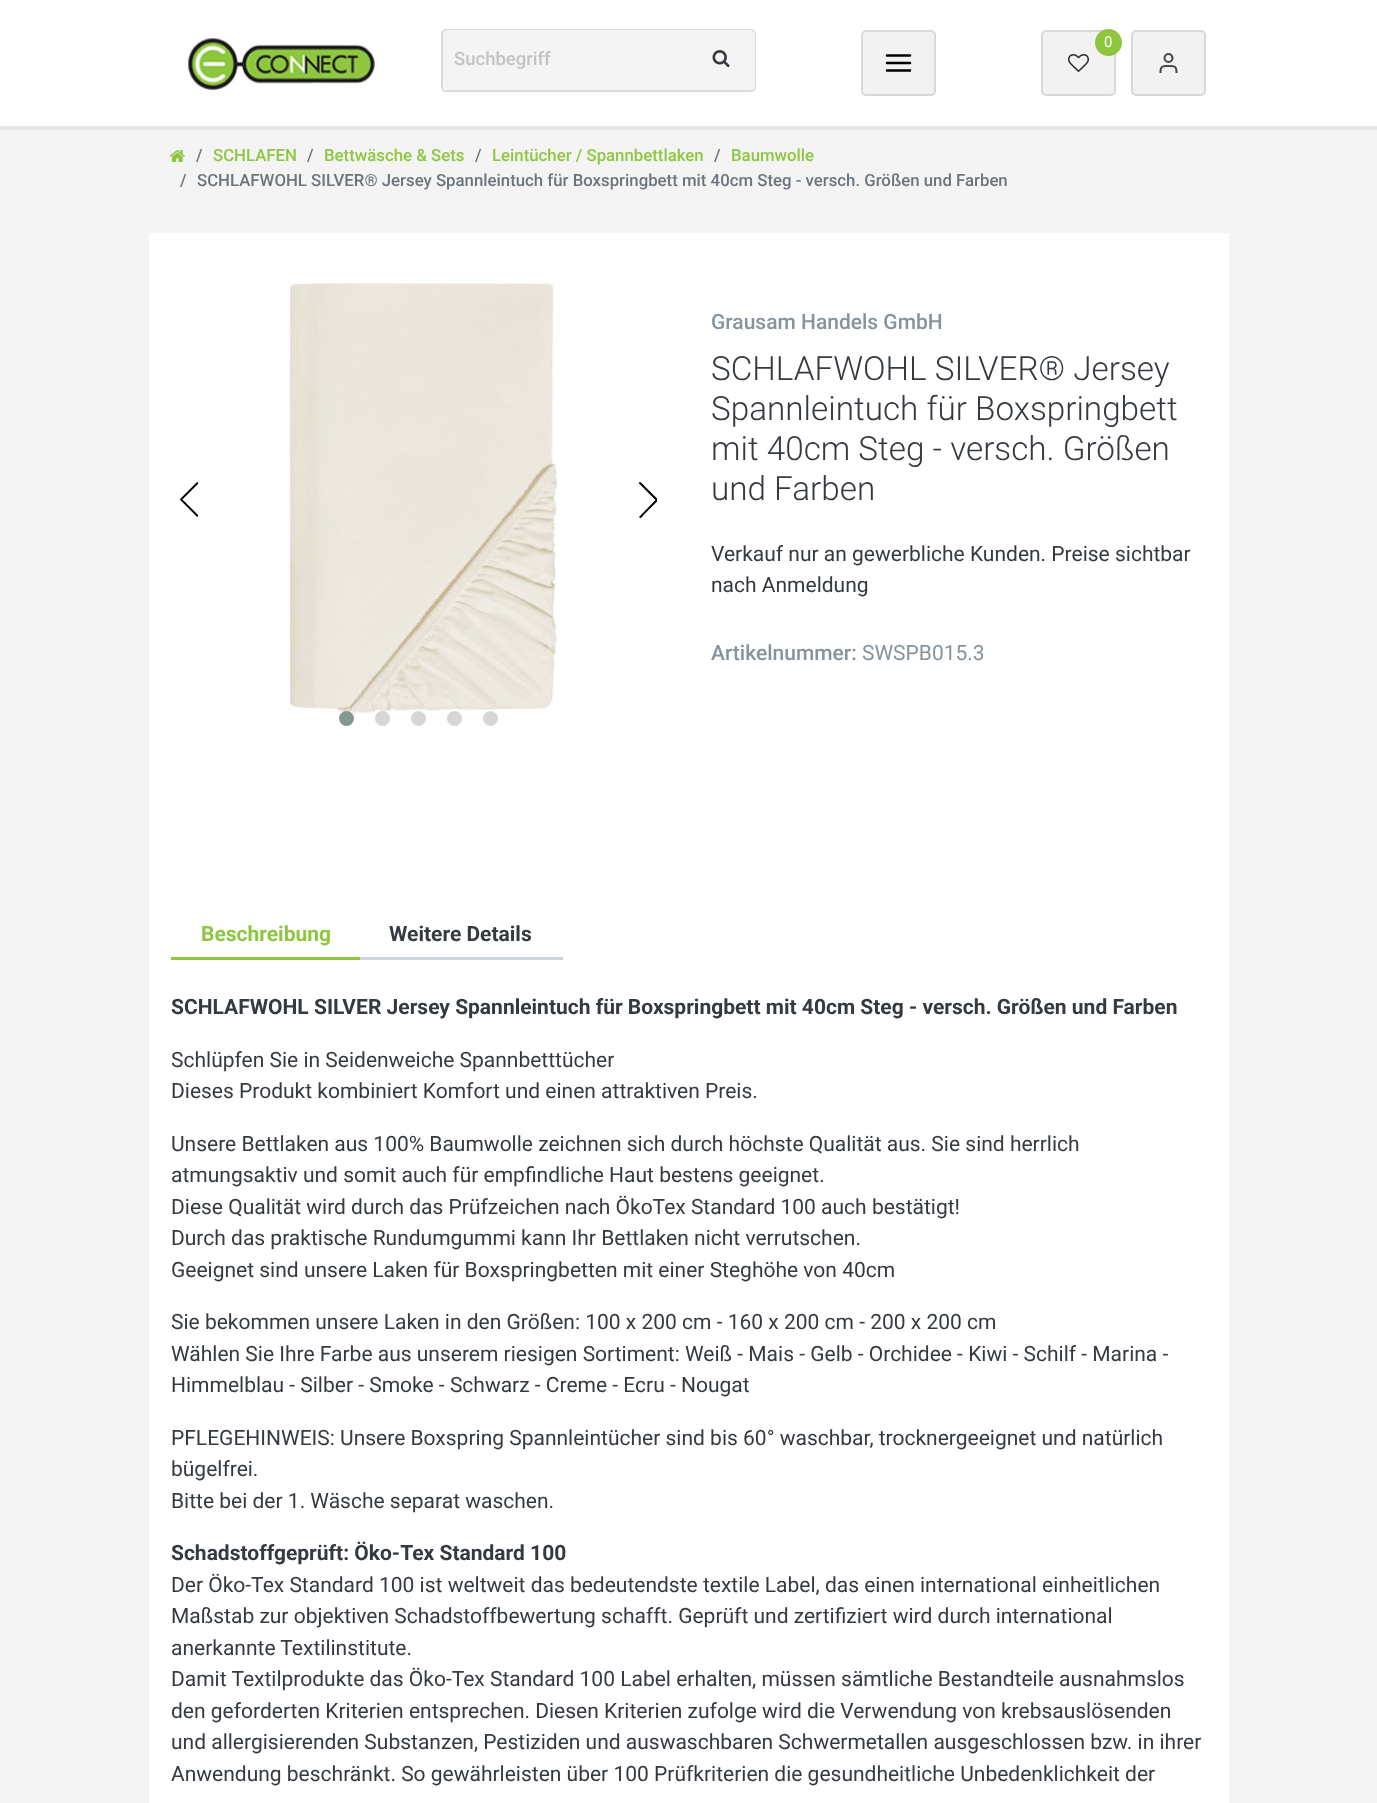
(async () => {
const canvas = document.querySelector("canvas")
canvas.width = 1377
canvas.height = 1803
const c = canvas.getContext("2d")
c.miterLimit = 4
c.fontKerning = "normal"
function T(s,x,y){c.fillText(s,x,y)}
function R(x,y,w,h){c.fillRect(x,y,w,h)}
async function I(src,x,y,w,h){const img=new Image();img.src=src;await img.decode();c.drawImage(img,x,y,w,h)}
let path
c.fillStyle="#f4f4f4"
R(0,0,1377,1803)
c.fillStyle="#fff"
R(0,0,1377,126)
await I("1.png",187,38,188,52)
c.beginPath()
c.roundRect(442,30,313,61,4)
c.strokeStyle="#dbdbdb"
c.lineWidth=2
c.stroke()
c.fillStyle="#f4f4f4"
c.beginPath()
c.roundRect(443,30,246,60,[5,0,0,5])
c.fill()
c.font="500 18.5px Roboto"
c.fillStyle="#c3c3c3"
T("Suchbegriff",454,65)
c.fillStyle="#f4f4f4"
c.beginPath()
c.roundRect(687,30,68,60,[0,5,5,0])
c.fill()
await I("2.png",712,50,18,18)
c.fillStyle="#f2f2f2"
c.beginPath()
c.roundRect(862,31,73,64,4)
c.fill()
c.strokeStyle="#d9d9d9"
c.stroke()
path = new Path2D("M887 63h23m-23-7.5h23m-23 15h23")
c.strokeStyle="#000"
c.lineWidth=2.5
c.lineCap="round"
c.lineJoin="round"
c.stroke(path)
c.beginPath()
c.roundRect(1042,31,73,64,4)
c.fill()
c.strokeStyle="#d9d9d9"
c.lineWidth=2
c.lineJoin="miter"
c.stroke()
c.fillStyle="#8ec63f"
c.beginPath()
c.arc(1108.5,42.5,13.5,0,7)
c.fill()
c.font="15px Roboto"
c.fillStyle="#fff"
T("0",1104,47)
await I("3.png",1068,54,21,18)
c.fillStyle="#f2f2f2"
c.beginPath()
c.roundRect(1132,31,73,64,4)
c.fill()
c.stroke()
path = new Path2D("M1176.5 72c0-6.5-2.5-6-8-6c-5.5 0-8-.5-8 6")
c.strokeStyle="#43484d"
c.lineCap="square"
c.stroke(path)
c.beginPath()
c.arc(1168.5,58,4,0,7)
c.stroke()
c.fillStyle="#e7e7e7"
R(0,126,1377,4)
await I("4.png",169,150,16,12)
c.font="500 16.8px Roboto"
c.fillStyle="#6c757d"
T("/",196,161)
c.fillStyle="#8ec63f"
T("SCHLAFEN",213,161)
c.fillStyle="#6c757d"
T("/",307,161)
c.fillStyle="#8ec63f"
T("Bettwäsche & Sets",324,161)
c.fillStyle="#6c757d"
T("/",475,161)
c.fillStyle="#8ec63f"
T("Leintücher / Spannbettlaken",492,161)
c.fillStyle="#6c757d"
T("/",714,161)
c.fillStyle="#8ec63f"
T("Baumwolle",731,161)
c.fillStyle="#6c757d"
T("/",180,186)
T("SCHLAFWOHL SILVER® Jersey Spannleintuch für Boxspringbett mit 40cm Steg - versch. Größen und Farben",197,186)
c.fillStyle="#fff"
R(149,233,1080,1570)
await I("5.png",288,282,273,432)
await I("6.png",180,482,18,35)
c.save()
c.beginPath()
c.rect(639,482,18,36)
c.clip()
c.fillStyle="#000"
path = new Path2D("M641 482.5c-1-1-2.5 0-2 1l16.5 16.5l-16.5 17l.5 .5c1 1.5 3-1 4-2.5l11.5-11.5c4-4 4-3 0-7z")
c.fill(path,"evenodd")
c.restore()
c.fillStyle="#869791"
c.beginPath()
c.arc(346.5,718.5,7.5,0,7)
c.fill()
c.fillStyle="#d6d6d6"
c.beginPath()
c.arc(382.5,718.5,7.5,0,7)
c.fill()
c.beginPath()
c.arc(418.5,718.5,7.5,0,7)
c.fill()
c.beginPath()
c.arc(454.5,718.5,7.5,0,7)
c.fill()
c.beginPath()
c.arc(490.5,718.5,7.5,0,7)
c.fill()
c.font="500 21px Roboto"
c.fillStyle="#86939e"
T("Grausam Handels GmbH",711,329)
c.font="300 33.25px Roboto"
c.fillStyle="#343a40"
T("SCHLAFWOHL SILVER® Jersey",711,380)
T("Spannleintuch für Boxspringbett",711,420)
T("mit 40cm Steg - versch. Größen",711,460)
T("und Farben",711,500)
c.font="21px Roboto"
T("Verkauf nur an gewerbliche Kunden. Preise sichtbar",711,561)
T("nach Anmeldung",711,592)
c.font="500 21px Roboto"
c.fillStyle="#86939e"
T("Artikelnummer:",711,660)
c.font="21px Roboto"
T("SWSPB015.3",862,660)
c.fillStyle="#8ec63f"
R(171,957,191,3)
c.font="bold 21px Roboto"
T("Beschreibung",201,941)
c.fillStyle="#ced4da"
R(360,957,203,3)
c.fillStyle="#343a40"
T("Weitere Details",389,941)
T("SCHLAFWOHL SILVER Jersey Spannleintuch für Boxspringbett mit 40cm Steg - versch. Größen und Farben",171,1014)
c.font="21px Roboto"
T("Schlüpfen Sie in Seidenweiche Spannbetttücher",171,1067)
T("Dieses Produkt kombiniert Komfort und einen attraktiven Preis.",171,1098)
T("Unsere Bettlaken aus 100% Baumwolle zeichnen sich durch höchste Qualität aus. Sie sind herrlich",171,1151)
T("atmungsaktiv und somit auch für empfindliche Haut bestens geeignet.",171,1182)
T("Diese Qualität wird durch das Prüfzeichen nach ÖkoTex Standard 100 auch bestätigt!",171,1214)
T("Durch das praktische Rundumgummi kann Ihr Bettlaken nicht verrutschen.",171,1245)
T("Geeignet sind unsere Laken für Boxspringbetten mit einer Steghöhe von 40cm",171,1277)
T("Sie bekommen unsere Laken in den Größen: 100 x 200 cm - 160 x 200 cm - 200 x 200 cm",171,1329)
T("Wählen Sie Ihre Farbe aus unserem riesigen Sortiment: Weiß - Mais - Gelb - Orchidee - Kiwi - Schilf - Marina -",171,1361)
T("Himmelblau - Silber - Smoke - Schwarz - Creme - Ecru - Nougat",171,1392)
T("PFLEGEHINWEIS: Unsere Boxspring Spannleintücher sind bis 60° waschbar, trocknergeeignet und natürlich",171,1445)
T("bügelfrei.",171,1476)
T("Bitte bei der 1. Wäsche separat waschen.",171,1508)
c.font="bold 21px Roboto"
T("Schadstoffgeprüft: Öko-Tex Standard 100",171,1560)
c.font="21px Roboto"
T("Der Öko-Tex Standard 100 ist weltweit das bedeutendste textile Label, das einen international einheitlichen",171,1592)
T("Maßstab zur objektiven Schadstoffbewertung schafft. Geprüft und zertifiziert wird durch international",171,1623)
T("anerkannte Textilinstitute.",171,1655)
T("Damit Textilprodukte das Öko-Tex Standard 100 Label erhalten, müssen sämtliche Bestandteile ausnahmslos",171,1686)
T("den geforderten Kriterien entsprechen. Diesen Kriterien zufolge wird die Verwendung von krebsauslösenden",171,1718)
T("und allergisierenden Substanzen, Pestiziden und auswaschbaren Schwermetallen ausgeschlossen bzw. in ihrer",171,1749)
T("Anwendung beschränkt. So gewährleisten über 100 Prüfkriterien die gesundheitliche Unbedenklichkeit der",171,1781)
})()
